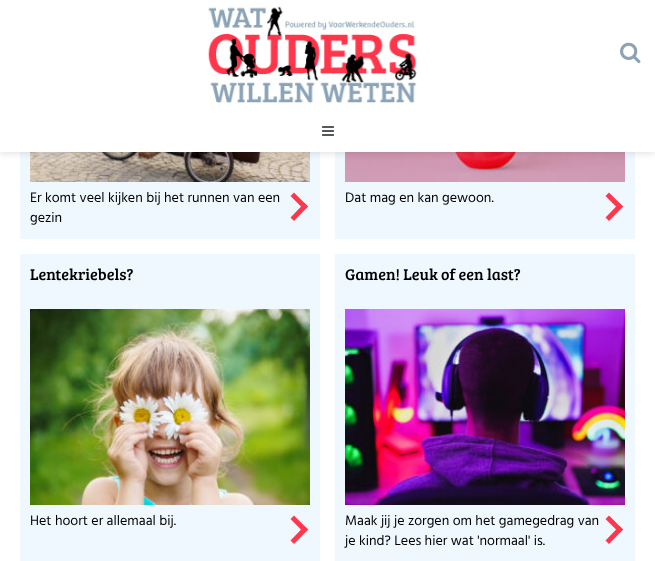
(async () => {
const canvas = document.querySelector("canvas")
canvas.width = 655
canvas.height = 561
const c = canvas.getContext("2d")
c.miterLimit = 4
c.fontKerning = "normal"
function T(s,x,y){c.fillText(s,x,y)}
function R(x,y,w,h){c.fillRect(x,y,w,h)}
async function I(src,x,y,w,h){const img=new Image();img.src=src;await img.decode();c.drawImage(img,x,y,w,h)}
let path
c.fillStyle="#fff"
R(0,0,655,561)
c.fillStyle="#f0f8ff"
R(20,152,300,87)
await I("4.png",30,152,280,30)
R(335,152,300,87)
await I("5.png",345,152,280,30)
c.fillStyle="#0000001a"
c.filter="blur(3px)"
c.beginPath()
c.rect(0,2,655,152)
c.fill()
c.filter="none"
c.fillStyle="#fff"
R(0,0,655,152)
await I("1.png",208,6,209,97)
await I("2.png",620,42,21,22)
await I("3.png",322,126,12,10)
c.font="14px Hind"
c.fillStyle="#000"
T("Er komt veel kijken bij het runnen van een",30,202)
c.fillStyle="#ff364c"
path = new Path2D("M294 192.5l14 14l-3.5 3.5l-14-14z")
c.fill(path)
path = new Path2D("M304.5 203l3.5 3.5l-14 14.5l-3.5-3.5z")
c.fill(path)
c.fillStyle="#000"
T("gezin",30,222)
T("Dat mag en kan gewoon.",345,202)
c.fillStyle="#ff364c"
path = new Path2D("M609 192.5l14 14l-3.5 3.5l-14-14z")
c.fill(path)
path = new Path2D("M619.5 203l3.5 3.5l-14 14.5l-3.5-3.5z")
c.fill(path)
c.fillStyle="#f0f8ff"
R(20,254,300,307)
c.font="16px Bree Serif"
c.fillStyle="#000"
T("Lentekriebels?",30,280)
await I("6.png",30,309,280,196)
c.font="14px Hind"
T("Het hoort er allemaal bij.",30,525)
c.fillStyle="#ff364c"
path = new Path2D("M294 515.5l14 14l-3.5 3.5l-14-14z")
c.fill(path)
path = new Path2D("M304.5 526l3.5 3.5l-14 14.5l-3.5-3.5z")
c.fill(path)
c.fillStyle="#f0f8ff"
R(335,254,300,307)
c.font="16px Bree Serif"
c.fillStyle="#000"
T("Gamen! Leuk of een last?",345,280)
await I("7.png",345,309,280,196)
c.font="14px Hind"
T("Maak jij je zorgen om het gamegedrag van",345,525)
c.fillStyle="#ff364c"
path = new Path2D("M609 515.5l14 14l-3.5 3.5l-14-14z")
c.fill(path)
path = new Path2D("M619.5 526l3.5 3.5l-14 14.5l-3.5-3.5z")
c.fill(path)
c.fillStyle="#000"
T("je kind? Lees hier wat 'normaal' is.",345,545)
})()
